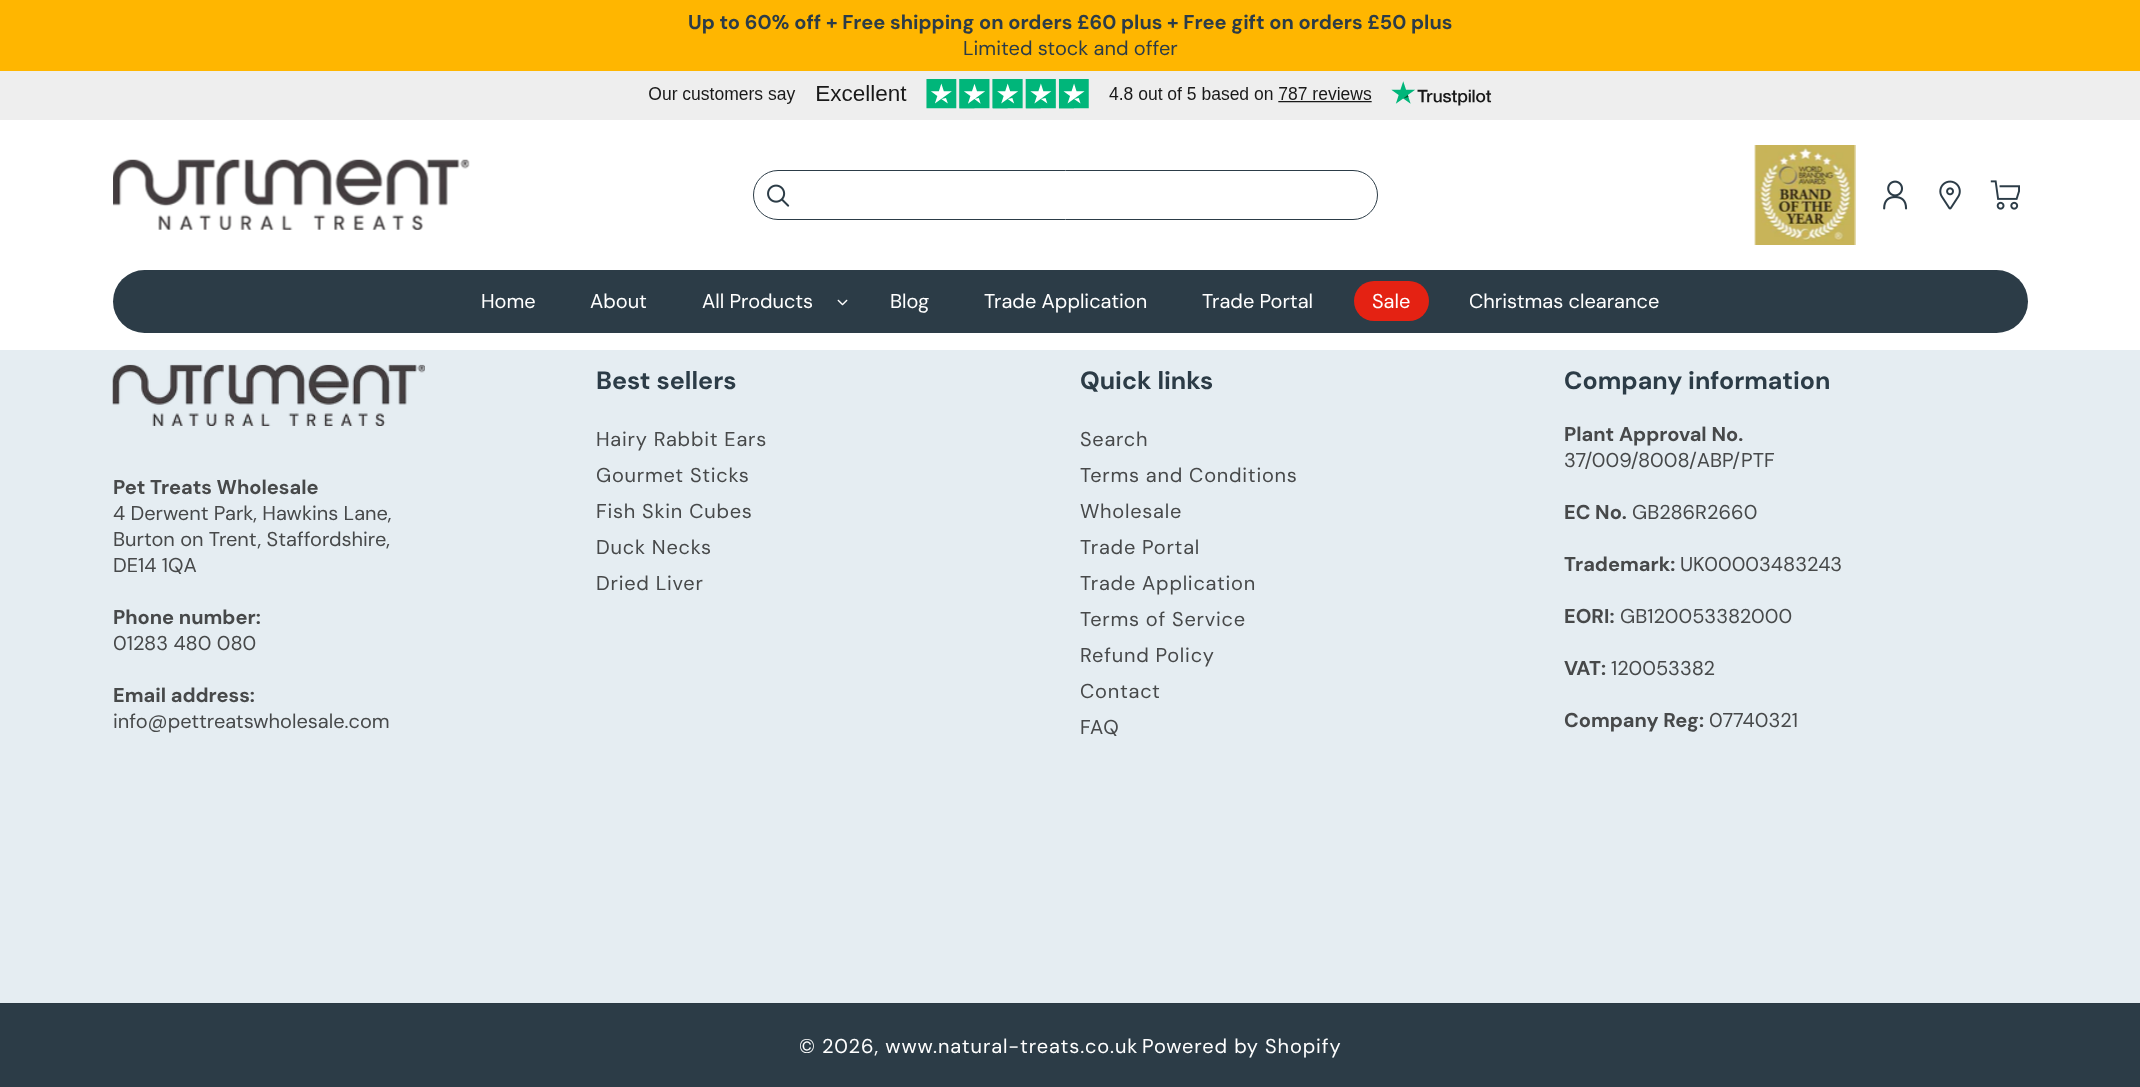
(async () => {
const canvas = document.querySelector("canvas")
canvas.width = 2140
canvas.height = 1087
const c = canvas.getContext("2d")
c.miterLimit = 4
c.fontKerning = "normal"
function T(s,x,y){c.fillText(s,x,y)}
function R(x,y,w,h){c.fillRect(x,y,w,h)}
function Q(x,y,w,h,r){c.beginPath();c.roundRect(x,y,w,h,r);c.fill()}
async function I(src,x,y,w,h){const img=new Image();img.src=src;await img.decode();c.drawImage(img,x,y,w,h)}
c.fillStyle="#e5edf2"
R(0,0,2140,1087)
c.fillStyle="#ffb600"
R(0,0,2140,71)
c.font="bold 20px DM Sans"
c.fillStyle="#2c3c47"
T("Up to 60% off + Free shipping on orders £60 plus + Free gift on orders £50 plus",688,29)
c.font="20px DM Sans"
T("Limited stock and offer",963,55)
c.fillStyle="#eee"
R(0,71,2140,49)
await I("1.png",649,79,843,30)
c.fillStyle="#fff"
R(0,120,2140,230)
await I("2.png",113,159,357,71)
c.beginPath()
c.roundRect(753.5,170.5,624,49,24.5)
c.strokeStyle="#2c3c47"
c.stroke()
await I("3.png",767,184,23,23)
await I("4.png",1754,145,102,100)
await I("5.png",1883,180,25,30)
await I("6.png",1939,180,22,30)
await I("7.png",1990,180,30,30)
c.fillStyle="#2c3c47"
Q(113,270,1915,63,31.5)
c.fillStyle="#fff"
T("Home",481,308)
T("About",590,308)
T("All Products",702,308)
await I("8.png",837,299,11,7)
T("Blog",890,308)
T("Trade Application",984,308)
T("Trade Portal",1202,308)
c.fillStyle="#e42213"
Q(1354,281,75,40,20)
c.fillStyle="#fff"
T("Sale",1372,308)
T("Christmas clearance",1469,308)
await I("9.png",112,364,313,62)
c.font="bold 20px DM Sans"
c.fillStyle="#47494a"
T("Pet Treats Wholesale",113,494)
c.font="20px DM Sans"
T("4 Derwent Park, Hawkins Lane,",113,520)
T("Burton on Trent, Staffordshire,",113,546)
T("DE14 1QA",113,572)
c.font="bold 20px DM Sans"
T("Phone number:",113,624)
c.font="20px DM Sans"
T("01283 480 080",113,650)
c.font="bold 20px DM Sans"
T("Email address:",113,702)
c.font="20px DM Sans"
T("info@pettreatswholesale.com",113,728)
c.font="bold 25px 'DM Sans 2'"
c.fillStyle="#2c3c47"
T("Best sellers",596,389)
c.letterSpacing="0.75px"
c.font="20px DM Sans"
c.fillStyle="#47494a"
T("Hairy Rabbit Ears",596,446)
T("Gourmet Sticks",596,482)
T("Fish Skin Cubes",596,518)
T("Duck Necks",596,554)
T("Dried Liver",596,590)
c.letterSpacing="0px"
c.font="bold 25px 'DM Sans 2'"
c.fillStyle="#2c3c47"
T("Quick links",1080,389)
c.letterSpacing="0.75px"
c.font="20px DM Sans"
c.fillStyle="#47494a"
T("Search",1080,446)
T("Terms and Conditions",1080,482)
T("Wholesale",1080,518)
T("Trade Portal",1080,554)
T("Trade Application",1080,590)
T("Terms of Service",1080,626)
T("Refund Policy",1080,662)
T("Contact",1080,698)
T("FAQ",1080,734)
c.letterSpacing="0px"
c.font="bold 25px 'DM Sans 2'"
c.fillStyle="#2c3c47"
T("Company information",1564,389)
c.font="bold 20px DM Sans"
c.fillStyle="#47494a"
T("Plant Approval No.",1564,441)
c.font="20px DM Sans"
T("37/009/8008/ABP/PTF",1564,467)
c.font="bold 20px DM Sans"
T("EC No.",1564,519)
c.font="20px DM Sans"
T("GB286R2660",1632,519)
c.font="bold 20px DM Sans"
T("Trademark:",1564,571)
c.font="20px DM Sans"
T("UK00003483243",1680,571)
c.font="bold 20px DM Sans"
T("EORI:",1564,623)
c.font="20px DM Sans"
T("GB120053382000",1620,623)
c.font="bold 20px DM Sans"
T("VAT:",1564,675)
c.font="20px DM Sans"
T("120053382",1611,675)
c.font="bold 20px DM Sans"
T("Company Reg:",1564,727)
c.font="20px DM Sans"
T("07740321",1709,727)
c.fillStyle="#2c3c47"
R(0,1004,2140,83)
c.fillStyle="#2a3943"
R(0,1003,2140,1)
c.letterSpacing="0.9px"
c.fillStyle="#fff"
T("© 2026, www.natural-treats.co.uk",799,1053)
T("Powered by Shopify",1142,1053)
})()
